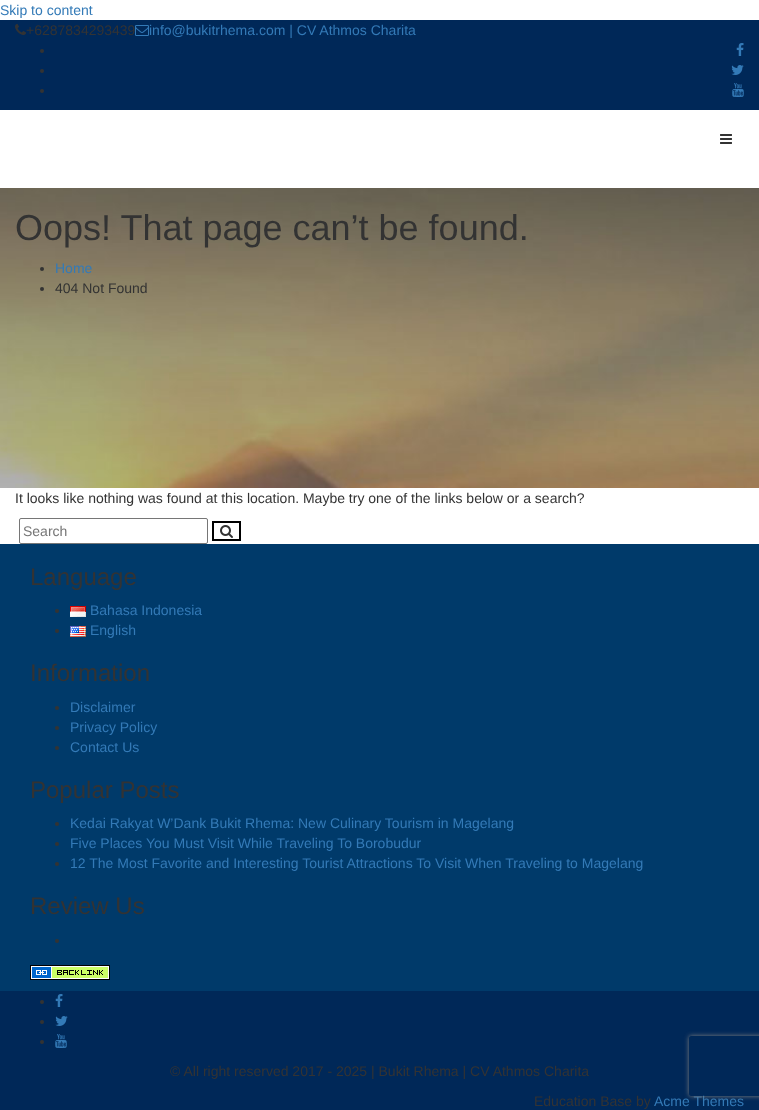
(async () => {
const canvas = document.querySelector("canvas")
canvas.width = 759
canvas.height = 1110
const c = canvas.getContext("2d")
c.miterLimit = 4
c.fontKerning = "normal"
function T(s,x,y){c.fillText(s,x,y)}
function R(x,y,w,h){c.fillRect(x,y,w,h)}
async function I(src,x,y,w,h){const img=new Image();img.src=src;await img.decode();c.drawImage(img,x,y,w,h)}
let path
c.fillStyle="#fff"
R(0,0,759,1110)
c.font="14px Liberation Sans"
c.fillStyle="#337ab7"
T("Skip to content",0,15)
c.fillStyle="#002858"
R(0,20,759,90)
await I("1.png",15,24,11,11)
c.fillStyle="#333"
T("+6287834293439",26,35)
await I("2.png",135,25,14,11)
c.fillStyle="#337ab7"
T("info@bukitrhema.com | CV Athmos Charita",149,35)
c.fillStyle="#333"
c.beginPath()
c.arc(42,51,2,0,7)
c.fill()
await I("3.png",736,43,8,13)
c.beginPath()
c.arc(42,71,2,0,7)
c.fill()
await I("4.png",731,65,13,10)
c.beginPath()
c.arc(42,91,2,0,7)
c.fill()
await I("5.png",732,83,12,14)
await I("6.png",720,134,12,10)
await I("7.png",0,188,759,300)
c.font="36px Liberation Sans"
T("Oops! That page can’t be found.",15,240)
c.beginPath()
c.arc(42,269,2,0,7)
c.fill()
c.font="14px Liberation Sans"
c.fillStyle="#337ab7"
T("Home",55,273)
c.fillStyle="#333"
c.beginPath()
c.arc(42,289,2,0,7)
c.fill()
T("404 Not Found",55,293)
T("It looks like nothing was found at this location. Maybe try one of the links below or a search?",15,503)
c.beginPath()
c.roundRect(19.5,518.5,188,25,1.5)
c.strokeStyle="#767676"
c.stroke()
c.fillStyle="#757575"
T("Search",23,536)
c.strokeStyle="#000"
c.lineWidth=2
c.strokeRect(213,522,27,18)
await I("8.png",220,525,13,13)
c.fillStyle="#003a6a"
R(0,544,759,447)
c.font="24px Liberation Sans"
c.fillStyle="#333"
T("Language",30,585)
c.beginPath()
c.arc(57,611,2,0,7)
c.fill()
await I("9.png",70,606,16,11)
c.font="14px Liberation Sans"
c.fillStyle="#337ab7"
T("Bahasa Indonesia",90,615)
c.fillStyle="#333"
c.beginPath()
c.arc(57,631,2,0,7)
c.fill()
await I("10.png",70,626,16,11)
c.fillStyle="#337ab7"
T("English",90,635)
c.font="24px Liberation Sans"
c.fillStyle="#333"
T("Information",30,681)
c.beginPath()
c.arc(57,708,2,0,7)
c.fill()
c.font="14px Liberation Sans"
c.fillStyle="#337ab7"
T("Disclaimer",70,712)
c.fillStyle="#333"
c.beginPath()
c.arc(57,728,2,0,7)
c.fill()
c.fillStyle="#337ab7"
T("Privacy Policy",70,732)
c.fillStyle="#333"
c.beginPath()
c.arc(57,748,2,0,7)
c.fill()
c.fillStyle="#337ab7"
T("Contact Us",70,752)
c.font="24px Liberation Sans"
c.fillStyle="#333"
T("Popular Posts",30,798)
c.beginPath()
c.arc(57,824,2,0,7)
c.fill()
c.font="14px Liberation Sans"
c.fillStyle="#337ab7"
T("Kedai Rakyat W’Dank Bukit Rhema: New Culinary Tourism in Magelang",70,828)
c.fillStyle="#333"
c.beginPath()
c.arc(57,844,2,0,7)
c.fill()
c.fillStyle="#337ab7"
T("Five Places You Must Visit While Traveling To Borobudur",70,848)
c.fillStyle="#333"
c.beginPath()
c.arc(57,864,2,0,7)
c.fill()
c.fillStyle="#337ab7"
T("12 The Most Favorite and Interesting Tourist Attractions To Visit When Traveling to Magelang",70,868)
c.font="24px Liberation Sans"
c.fillStyle="#333"
T("Review Us",30,914)
c.beginPath()
c.arc(57,941,2,0,7)
c.fill()
await I("11.png",30,965,80,15)
c.fillStyle="#002858"
R(0,991,759,119)
c.fillStyle="#333"
c.beginPath()
c.arc(42,1002,2,0,7)
c.fill()
await I("3.png",55,994,8,13)
c.beginPath()
c.arc(42,1022,2,0,7)
c.fill()
await I("4.png",55,1016,13,10)
c.beginPath()
c.arc(42,1042,2,0,7)
c.fill()
await I("5.png",55,1034,12,14)
c.font="14px Liberation Sans"
T("© All right reserved 2017 - 2025 | Bukit Rhema | CV Athmos Charita",170,1076)
T("Education Base by",534,1106)
c.fillStyle="#337ab7"
T("Acme Themes",654,1106)
c.save()
path = new Path2D("M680 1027h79v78h-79zm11 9h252c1 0 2 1 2 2v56c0 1-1 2-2 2h-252c-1 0-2-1-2-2v-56c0-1 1-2 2-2z")
c.clip(path,"evenodd")
c.fillStyle="#808080"
c.filter="blur(2.5px)"
c.beginPath()
c.roundRect(689,1036,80,60,2)
c.fill()
c.filter="none"
c.restore()
})()
